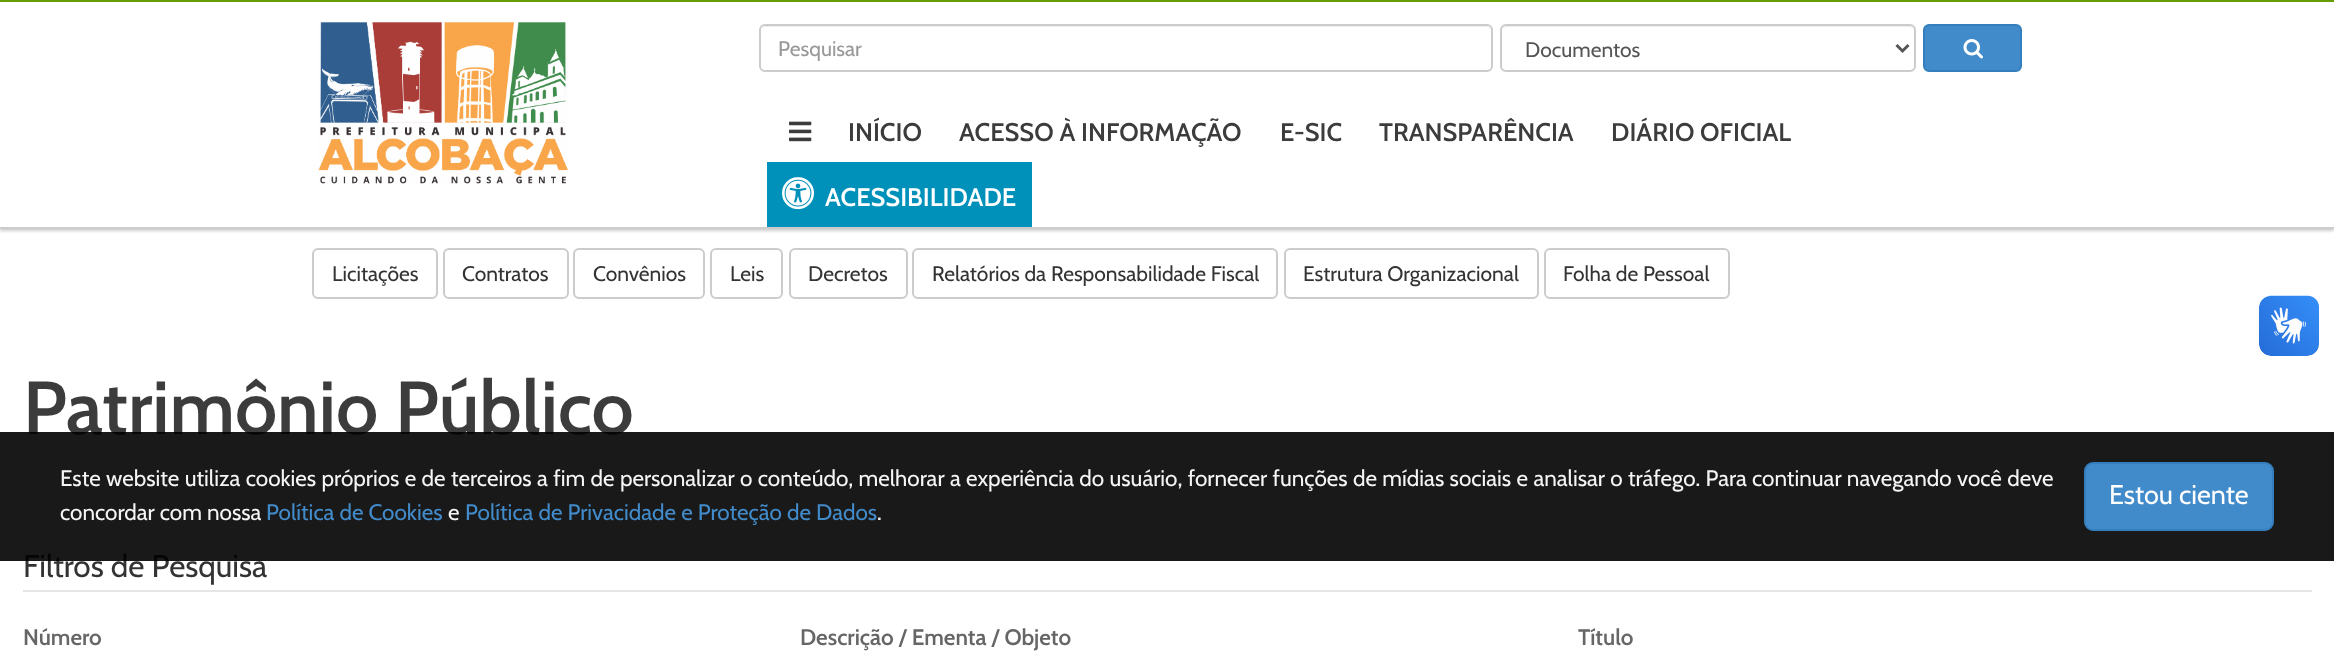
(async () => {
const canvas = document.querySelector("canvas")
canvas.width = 2334
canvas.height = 651
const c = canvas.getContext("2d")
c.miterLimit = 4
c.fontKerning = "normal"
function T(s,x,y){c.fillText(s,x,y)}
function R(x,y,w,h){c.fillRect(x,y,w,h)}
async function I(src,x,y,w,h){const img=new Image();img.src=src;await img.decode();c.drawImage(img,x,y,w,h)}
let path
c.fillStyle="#fff"
R(0,0,2334,651)
c.fillStyle="#00000033"
c.filter="blur(1.5px)"
c.beginPath()
c.rect(0,3,2334,228)
c.fill()
c.filter="none"
c.fillStyle="#fff"
R(0,2,2334,225)
c.fillStyle="#679b08"
R(0,0,2334,2)
c.fillStyle="#ccc"
R(0,227,2334,2)
await I("1.png",318,22,250,162)
c.fillStyle="#ececec"
path = new Path2D("M765 27h721c3 0 5 2 5 5v-1c0-3-2-5-5-5h-720c-2 0-3 1-4 2z")
c.fill(path)
c.beginPath()
c.roundRect(760,25,732,46,5)
c.strokeStyle="#ccc"
c.lineWidth=2
c.stroke()
c.font="21px Cabin"
c.fillStyle="#999"
T("Pesquisar",778,56)
c.fillStyle="#ececec"
path = new Path2D("M1506 27h404c2 0 4 2 4 5v-1c0-3-2-5-5-5h-402c-3 0-5 2-5 5v1c0-3 2-5 4-5z")
c.fill(path)
c.beginPath()
c.roundRect(1501,25,414,46,5)
c.stroke()
path = new Path2D("M1896.5 45l6 6l6-6")
c.strokeStyle="#555"
c.lineWidth=3
c.stroke(path)
c.fillStyle="#555"
T("Documentos",1525,57)
c.fillStyle="#428bca"
c.beginPath()
c.roundRect(1924,25,97,46,5)
c.fill()
c.strokeStyle="#357ebd"
c.lineWidth=2
c.stroke()
await I("2.png",1963,39,20,20)
await I("3.png",789,121,23,21)
c.font="600 25.5px Cabin"
c.fillStyle="#3c3c3c"
T("INÍCIO",848,141)
T("ACESSO À INFORMAÇÃO",959,141)
T("E-SIC",1280,141)
T("TRANSPARÊNCIA",1379,141)
T("DIÁRIO OFICIAL",1611,141)
c.fillStyle="#0091bb"
R(767,162,265,65)
await I("4.png",782,177,32,33)
c.fillStyle="#fff"
T("ACESSIBILIDADE",825,206)
c.beginPath()
c.roundRect(313,249,124,49,5)
c.strokeStyle="#ccc"
c.stroke()
c.font="21px Cabin"
c.fillStyle="#333"
T("Licitações",332,281)
c.beginPath()
c.roundRect(444,249,124,49,5)
c.stroke()
T("Contratos",462,281)
c.beginPath()
c.roundRect(574,249,130,49,5)
c.stroke()
T("Convênios",593,281)
c.beginPath()
c.roundRect(711,249,71,49,5)
c.stroke()
T("Leis",730,281)
c.beginPath()
c.roundRect(790,249,117,49,5)
c.stroke()
T("Decretos",808,281)
c.beginPath()
c.roundRect(913,249,364,49,5)
c.stroke()
T("Relatórios da Responsabilidade Fiscal",932,281)
c.beginPath()
c.roundRect(1285,249,253,49,5)
c.stroke()
T("Estrutura Organizacional",1303,281)
c.beginPath()
c.roundRect(1545,249,184,49,5)
c.stroke()
T("Folha de Pessoal",1563,281)
c.font="600 75px Cabin"
c.fillStyle="#3c3c3c"
T("Patrimônio Público",23,434)
c.fillStyle="#e5e5e5"
R(23,590,2289,2)
c.font="31.5px Cabin"
c.fillStyle="#333"
T("Filtros de Pesquisa",23,577)
c.font="600 22.5px Cabin"
c.fillStyle="#666"
T("Número",23,645)
T("Descrição / Ementa / Objeto",800,645)
T("Título",1578,645)
await I("5.png",2259,295,60,61)
await I("6.png",2259,296,60,60)
c.fillStyle="#000000e6"
R(0,432,2334,129)
c.wordSpacing="0.3px"
c.font="22.5px Cabin"
c.fillStyle="#f5f5f5"
T("Este website utiliza cookies próprios e de terceiros a fim de personalizar o conteúdo, melhorar a experiência do usuário, fornecer funções de mídias sociais e analisar o tráfego. Para continuar navegando você deve",60,486)
c.wordSpacing="0px"
T("concordar com nossa",60,520)
c.fillStyle="#428bca"
T("Política de Cookies",266,520)
c.fillStyle="#f5f5f5"
T("e",448,520)
c.fillStyle="#428bca"
T("Política de Privacidade e Proteção de Dados",465,520)
c.fillStyle="#f5f5f5"
T(".",877,520)
c.fillStyle="#428bca"
c.beginPath()
c.roundRect(2085,463,188,67,8)
c.fill()
c.strokeStyle="#357ebd"
c.stroke()
c.font="27px Cabin"
c.fillStyle="#fff"
T("Estou ciente",2109,504)
})()
